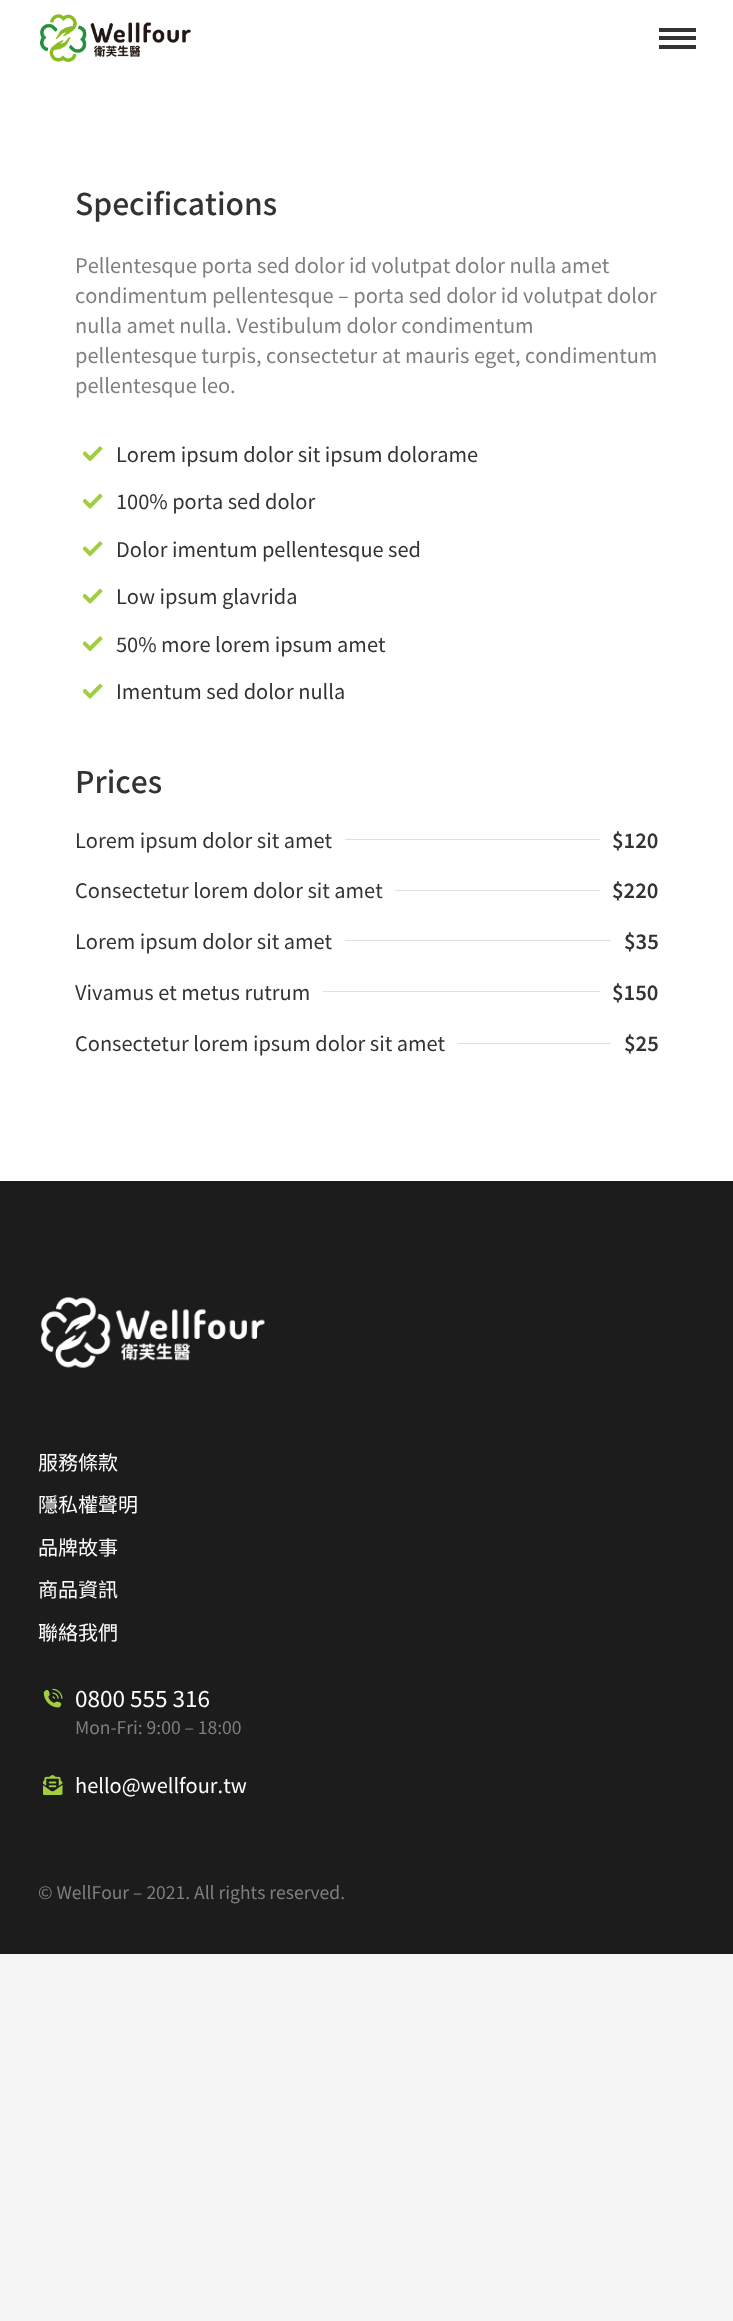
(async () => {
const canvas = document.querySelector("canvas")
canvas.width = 733
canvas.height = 2321
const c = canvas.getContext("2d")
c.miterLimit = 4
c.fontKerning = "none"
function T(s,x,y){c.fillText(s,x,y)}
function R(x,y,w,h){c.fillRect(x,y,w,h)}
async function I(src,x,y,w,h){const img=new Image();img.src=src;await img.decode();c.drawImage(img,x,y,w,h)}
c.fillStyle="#f5f5f5"
R(0,0,733,2321)
c.fillStyle="#fff"
R(0,0,733,1181)
await I("1.png",40,14,151,48)
c.fillStyle="#333"
R(659,28,37,4)
R(659,36,37,4)
R(659,45,37,4)
c.font="500 30px Noto Sans TC"
T("Specifications",75,215)
c.font="20px Noto Sans TC"
c.fillStyle="#7f7f7f"
T("Pellentesque porta sed dolor id volutpat dolor nulla amet",75,273)
T("condimentum pellentesque – porta sed dolor id volutpat dolor",75,303)
T("nulla amet nulla. Vestibulum dolor condimentum",75,333)
T("pellentesque turpis, consectetur at mauris eget, condimentum",75,363)
T("pellentesque leo.",75,393)
await I("2.png",83,446,20,16)
c.fillStyle="#333"
T("Lorem ipsum dolor sit ipsum dolorame",116,462)
await I("3.png",83,493,20,16)
T("100% porta sed dolor",116,509)
await I("2.png",83,541,20,16)
T("Dolor imentum pellentesque sed",116,557)
await I("3.png",83,588,20,16)
T("Low ipsum glavrida",116,604)
await I("2.png",83,636,20,16)
T("50% more lorem ipsum amet",116,652)
await I("3.png",83,683,20,16)
T("Imentum sed dolor nulla",116,699)
c.font="500 30px Noto Sans TC"
T("Prices",75,793)
c.font="20px Noto Sans TC"
T("Lorem ipsum dolor sit amet",75,848)
c.fillStyle="#e0e0e0"
R(345,839,255,1)
c.font="600 20px Noto Sans TC"
c.fillStyle="#333"
T("$120",612,848)
c.font="20px Noto Sans TC"
T("Consectetur lorem dolor sit amet",75,898)
c.fillStyle="#e0e0e0"
R(395,890,205,1)
c.font="600 20px Noto Sans TC"
c.fillStyle="#333"
T("$220",612,898)
c.font="20px Noto Sans TC"
T("Lorem ipsum dolor sit amet",75,949)
c.fillStyle="#e0e0e0"
R(345,940,266,1)
c.font="600 20px Noto Sans TC"
c.fillStyle="#333"
T("$35",624,949)
c.font="20px Noto Sans TC"
T("Vivamus et metus rutrum",75,1000)
c.fillStyle="#e0e0e0"
R(323,991,277,1)
c.font="600 20px Noto Sans TC"
c.fillStyle="#333"
T("$150",612,1000)
c.font="20px Noto Sans TC"
T("Consectetur lorem ipsum dolor sit amet",75,1051)
c.fillStyle="#e0e0e0"
R(458,1043,153,1)
c.font="600 20px Noto Sans TC"
c.fillStyle="#333"
T("$25",624,1051)
c.fillStyle="#1c1c1c"
R(0,1181,733,773)
await I("4.png",41,1297,224,71)
c.font="20px Noto Sans TC"
c.fillStyle="#fff"
T("服務條款",38,1470)
T("隱私權聲明",38,1512)
T("品牌故事",38,1555)
T("商品資訊",38,1597)
T("聯絡我們",38,1640)
await I("5.png",43,1688,20,20)
c.font="22.5px Noto Sans TC"
T("0800 555 316",75,1707)
c.font="17.5px Noto Sans TC"
c.fillStyle="#7f7f7f"
T("Mon-Fri: 9:00 – 18:00",75,1734)
await I("6.png",43,1775,20,20)
c.font="20px Noto Sans TC"
c.fillStyle="#fff"
T("hello@wellfour.tw",75,1793)
c.font="17.5px Noto Sans TC"
c.fillStyle="#7f7f7f"
T("© WellFour – 2021. All rights reserved.",38,1899)
})()
